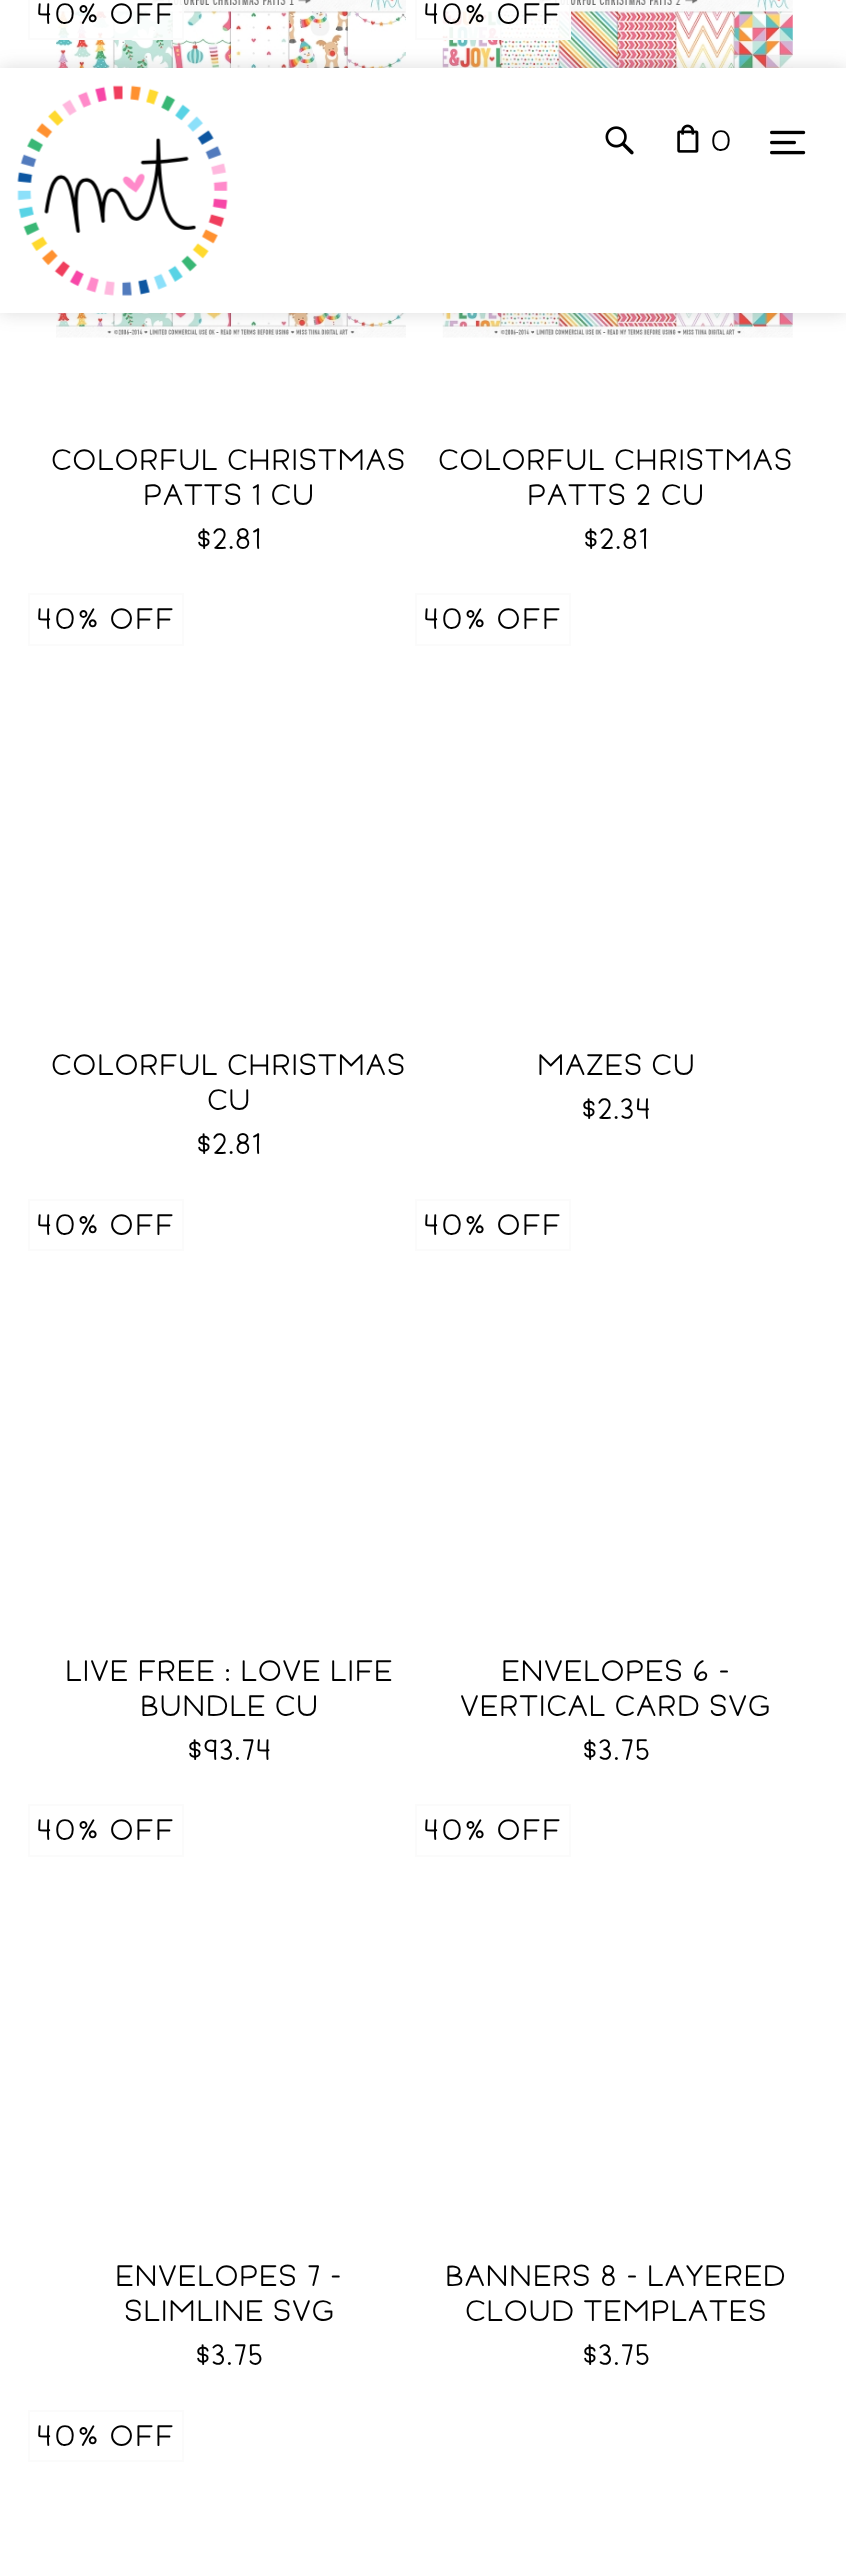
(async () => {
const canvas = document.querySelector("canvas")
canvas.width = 846
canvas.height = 2572
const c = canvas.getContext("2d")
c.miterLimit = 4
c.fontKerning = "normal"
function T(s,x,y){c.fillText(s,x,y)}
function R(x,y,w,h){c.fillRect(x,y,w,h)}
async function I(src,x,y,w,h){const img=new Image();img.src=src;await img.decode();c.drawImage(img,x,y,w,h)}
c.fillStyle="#fff"
R(0,0,846,2572)
await I("1.png",56,0,350,338)
c.fillStyle="#ffffffe6"
R(56,0,126,38)
c.strokeStyle="#fbfbfb"
c.lineWidth=2
c.strokeRect(29,-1,154,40)
c.letterSpacing="3.5px"
c.font="29.75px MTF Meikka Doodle"
c.fillStyle="#000"
T("40% OFF",37,24)
c.letterSpacing="1.75px"
T("$2.81",197,549)
c.letterSpacing="2.6px"
T("COLORFUL CHRISTMAS",52,470)
T("PATTS 1 CU",144,505)
await I("2.png",442,0,351,338)
c.fillStyle="#ffffffe6"
R(442,0,127,38)
c.strokeRect(416,-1,154,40)
c.letterSpacing="3.5px"
c.fillStyle="#000"
T("40% OFF",424,24)
c.letterSpacing="1.75px"
T("$2.81",584,549)
c.letterSpacing="2.6px"
T("COLORFUL CHRISTMAS",439,470)
T("PATTS 2 CU",528,505)
c.strokeRect(29,594,154,51)
c.letterSpacing="3.5px"
T("40% OFF",37,629)
c.letterSpacing="1.75px"
T("$2.81",197,1154)
c.letterSpacing="2.6px"
T("COLORFUL CHRISTMAS",52,1075)
T("CU",208,1110)
c.strokeRect(416,594,154,51)
c.letterSpacing="3.5px"
T("40% OFF",424,629)
c.letterSpacing="1.75px"
T("$2.34",582,1119)
c.letterSpacing="2.6px"
T("MAZES CU",538,1075)
c.strokeRect(29,1200,154,50)
c.letterSpacing="3.5px"
T("40% OFF",37,1235)
c.letterSpacing="1.75px"
T("$93.74",188,1760)
c.letterSpacing="2.6px"
T("LIVE FREE : LOVE LIFE",66,1681)
T("BUNDLE CU",141,1716)
c.strokeRect(416,1200,154,50)
c.letterSpacing="3.5px"
T("40% OFF",424,1235)
c.letterSpacing="1.75px"
T("$3.75",583,1760)
c.letterSpacing="2.6px"
T("ENVELOPES 6 -",502,1681)
T("VERTICAL CARD SVG",461,1716)
c.strokeRect(29,1805,154,51)
c.letterSpacing="3.5px"
T("40% OFF",37,1840)
c.letterSpacing="1.75px"
T("$3.75",196,2365)
c.letterSpacing="2.6px"
T("ENVELOPES 7 -",116,2286)
T("SLIMLINE SVG",125,2321)
c.strokeRect(416,1805,154,51)
c.letterSpacing="3.5px"
T("40% OFF",424,1840)
c.letterSpacing="1.75px"
T("$3.75",583,2365)
c.letterSpacing="2.6px"
T("BANNERS 8 - LAYERED",446,2286)
T("CLOUD TEMPLATES",466,2321)
c.strokeRect(29,2411,154,50)
c.letterSpacing="3.5px"
T("40% OFF",37,2446)
c.fillStyle="#4a494a33"
c.filter="blur(9px)"
c.beginPath()
c.rect(0,68,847,245)
c.fill()
c.filter="none"
c.fillStyle="#fff"
R(0,68,846,245)
await I("3.png",17,85,211,211)
await I("4.png",605,126,29,29)
await I("5.png",677,124,22,29)
c.letterSpacing="1.75px"
c.fillStyle="#000"
T("0",711,151)
await I("6.png",770,130,36,25)
})()
